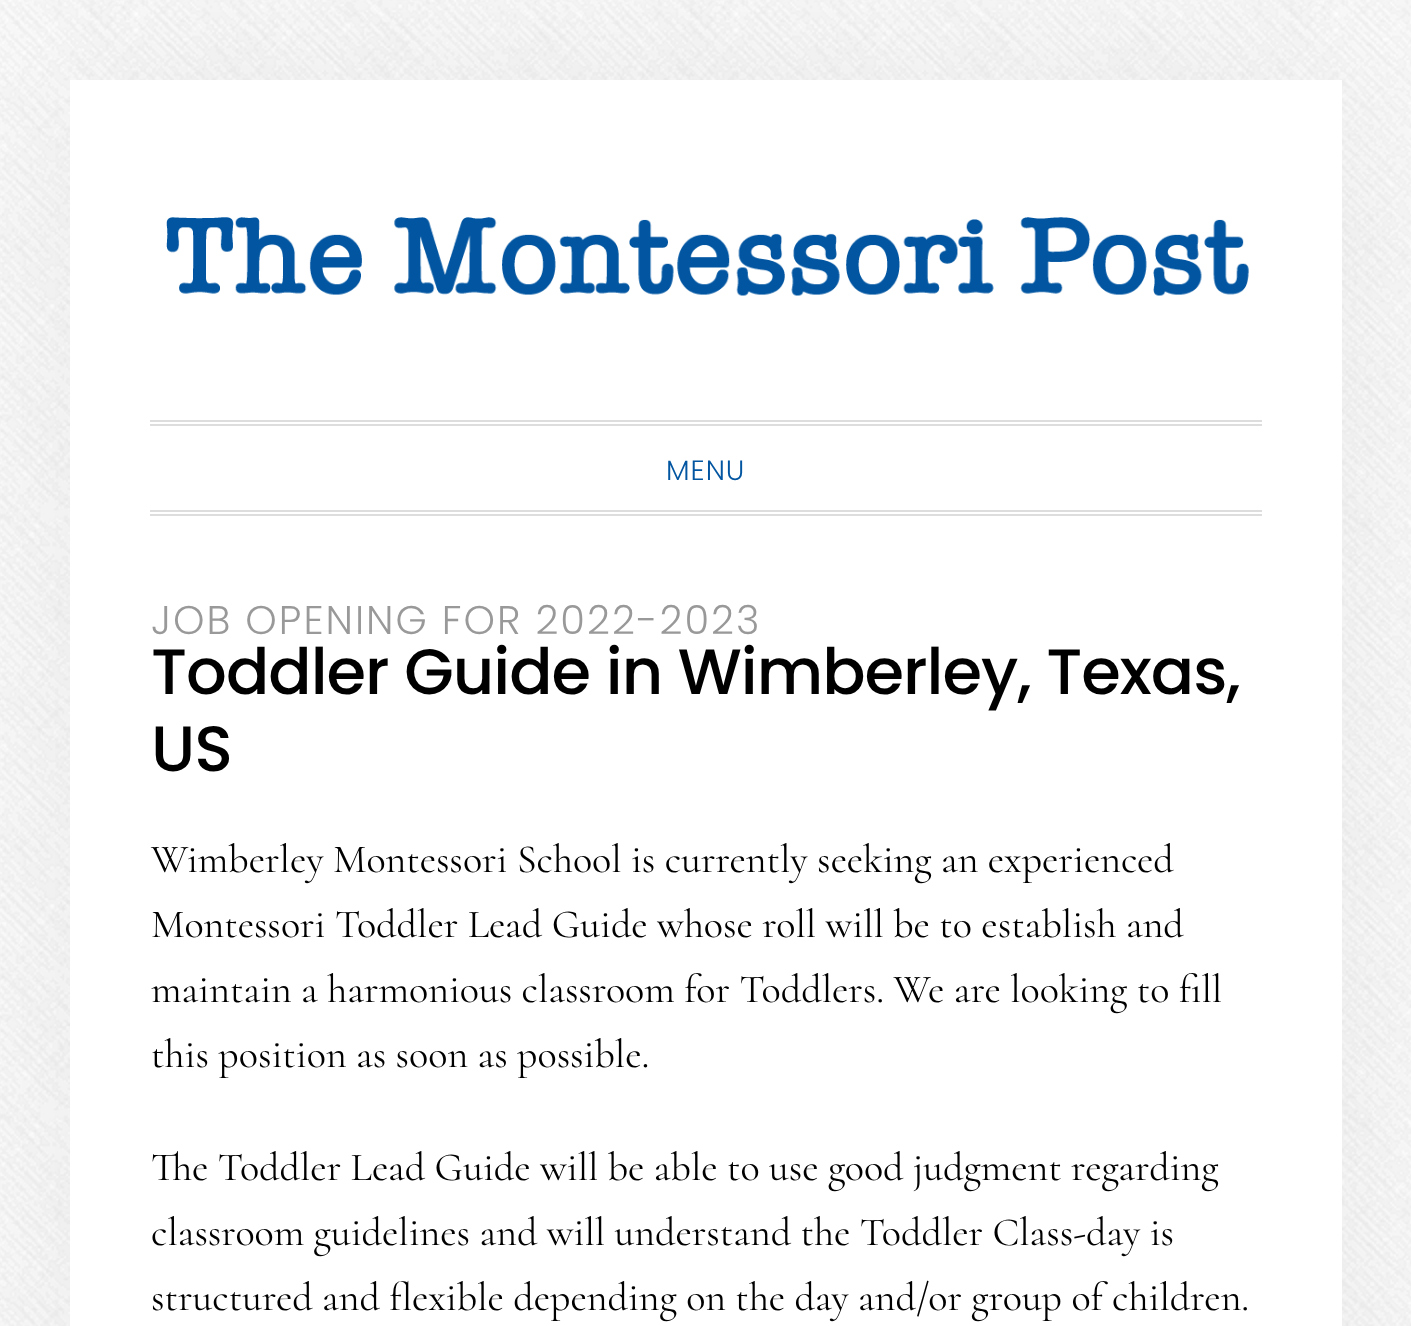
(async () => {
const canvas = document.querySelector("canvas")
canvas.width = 1411
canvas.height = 1326
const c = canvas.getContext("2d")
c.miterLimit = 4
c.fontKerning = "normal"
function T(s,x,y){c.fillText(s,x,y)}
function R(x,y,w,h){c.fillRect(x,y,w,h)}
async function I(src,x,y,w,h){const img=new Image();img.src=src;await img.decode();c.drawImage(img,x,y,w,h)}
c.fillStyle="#fff"
R(0,0,1411,1326)
await I("1.png",0,0,1411,1326)
c.fillStyle="#0000000d"
c.filter="blur(80px)"
c.beginPath()
c.rect(70,80,1272,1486)
c.fill()
c.filter="none"
c.fillStyle="#fff"
R(70,80,1272,1246)
await I("2.png",166,217,1083,79)
c.fillStyle="#ddd"
R(150,420,1112,2)
R(150,424,1112,2)
R(150,510,1112,2)
R(150,514,1112,2)
c.letterSpacing="1px"
c.font="300 28px Poppins"
c.fillStyle="#0255a1"
T("MENU",666,480)
c.letterSpacing="2px"
c.font="300 40px Poppins"
c.fillStyle="#999"
T("JOB OPENING FOR 2022-2023",151,634)
c.letterSpacing="-1px"
c.font="500 64px Poppins"
c.fillStyle="#000"
T("Toddler Guide in Wimberley, Texas,",151,694)
T("US",151,771)
c.letterSpacing="0px"
c.font="40px Cormorant"
T("Wimberley Montessori School is currently seeking an experienced",151,872)
T("Montessori Toddler Lead Guide whose roll will be to establish and",151,937)
T("maintain a harmonious classroom for Toddlers. We are looking to fill",151,1002)
T("this position as soon as possible.",151,1067)
T("The Toddler Lead Guide will be able to use good judgment regarding",151,1180)
T("classroom guidelines and will understand the Toddler Class-day is",151,1245)
T("structured and flexible depending on the day and/or group of children.",151,1310)
})()
